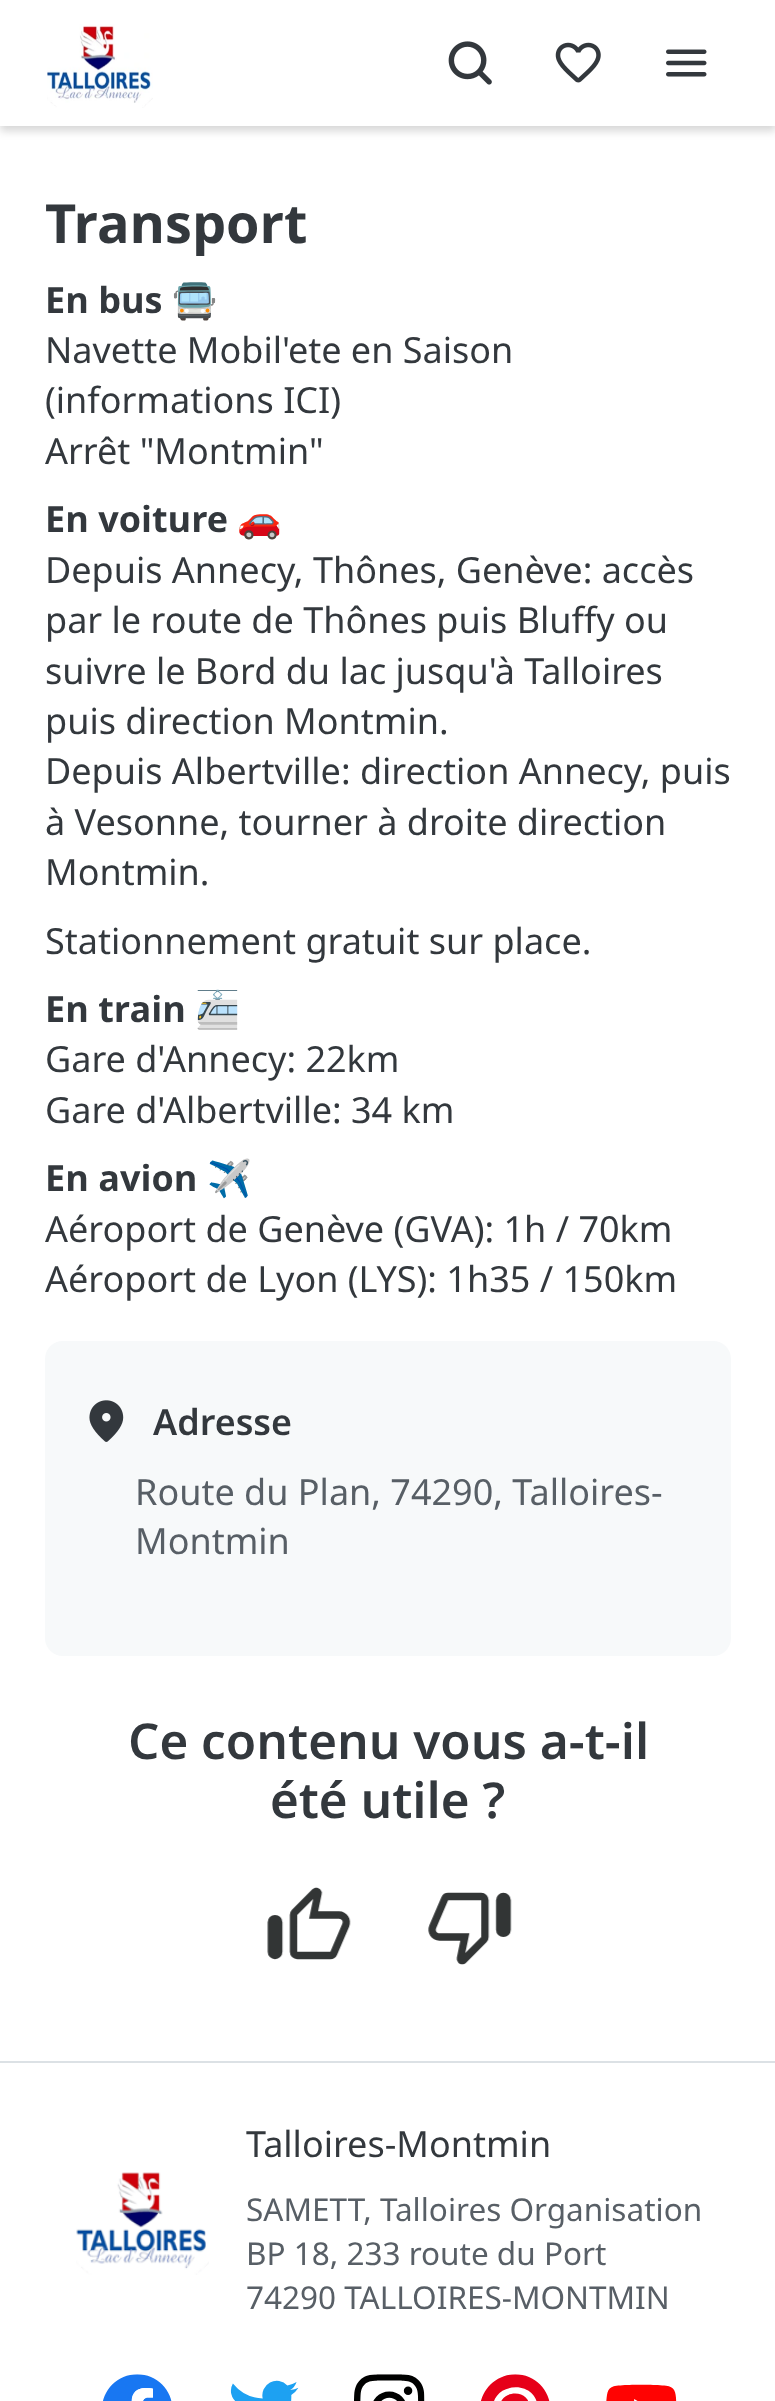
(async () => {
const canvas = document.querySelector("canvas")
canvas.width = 775
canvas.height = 2401
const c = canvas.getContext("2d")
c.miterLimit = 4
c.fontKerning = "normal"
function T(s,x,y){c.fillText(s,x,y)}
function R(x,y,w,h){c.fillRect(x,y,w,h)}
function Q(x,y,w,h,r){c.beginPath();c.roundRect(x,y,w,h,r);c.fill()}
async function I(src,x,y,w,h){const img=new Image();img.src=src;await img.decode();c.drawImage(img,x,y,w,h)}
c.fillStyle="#fff"
R(0,0,775,2401)
c.fillStyle="#00000029"
c.filter="blur(4.5px)"
c.beginPath()
c.rect(0,5,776,126)
c.fill()
c.filter="none"
c.fillStyle="#fff"
R(0,0,775,126)
await I("1.png",47,24,106,84)
await I("2.png",448,41,44,44)
await I("3.png",555,42,46,41)
await I("4.png",666,49,41,28)
c.font="bold 54px Noto Sans"
c.fillStyle="#33383d"
T("Transport",45,243)
c.font="bold 36px Noto Sans"
T("En bus",45,313)
c.font="bold 36px Noto Color Emoji"
T("🚍",172,313)
c.font="36px Noto Sans"
T("Navette Mobil'ete en Saison",45,363)
T("(informations ICI)",45,413)
T("Arrêt \"Montmin\"",45,464)
c.font="bold 36px Noto Sans"
T("En voiture",45,532)
c.font="bold 36px Noto Color Emoji"
T("🚗",237,532)
c.font="36px Noto Sans"
T("Depuis Annecy, Thônes, Genève: accès",45,583)
T("par le route de Thônes puis Bluffy ou",45,633)
T("suivre le Bord du lac jusqu'à Talloires",45,684)
T("puis direction Montmin.",45,734)
T("Depuis Albertville: direction Annecy, puis",45,784)
T("à Vesonne, tourner à droite direction",45,835)
T("Montmin.",45,885)
T("Stationnement gratuit sur place.",45,954)
c.font="bold 36px Noto Sans"
T("En train",45,1022)
c.font="bold 36px Noto Color Emoji"
T("🚈",195,1022)
c.font="36px Noto Sans"
T("Gare d'Annecy: 22km",45,1072)
T("Gare d'Albertville: 34 km",45,1123)
c.font="bold 36px Noto Sans"
T("En avion",45,1191)
c.font="bold 36px Noto Color Emoji"
T("✈️",207,1191)
c.font="36px Noto Sans"
T("Aéroport de Genève (GVA): 1h / 70km",45,1242)
T("Aéroport de Lyon (LYS): 1h35 / 150km",45,1292)
c.fillStyle="#f7f9fa"
Q(45,1341,686,315,18)
await I("5.png",89,1400,35,42)
c.font="600 36px Noto Sans"
c.fillStyle="#33383d"
T("Adresse",153,1435)
c.font="36px Noto Sans"
c.fillStyle="#585f66"
T("Route du Plan, 74290, Talloires-",135,1505)
T("Montmin",135,1554)
c.font="600 49.5px Noto Sans"
c.fillStyle="#33383d"
T("Ce contenu vous a-t-il",128,1759)
T("été utile ?",270,1818)
await I("6.png",267,1887,84,73)
await I("7.png",428,1892,84,73)
c.fillStyle="#dce1e5"
R(0,2061,775,2)
await I("8.png",76,2172,133,103)
c.font="36px Noto Sans"
c.fillStyle="#33383d"
T("Talloires-Montmin",246,2157)
c.font="31.5px Noto Sans"
c.fillStyle="#585f66"
T("SAMETT, Talloires Organisation",246,2221)
T("BP 18, 233 route du Port",246,2265)
T("74290 TALLOIRES-MONTMIN",246,2309)
await I("9.png",103,2374,69,27)
await I("10.png",230,2380,69,21)
await I("11.png",354,2374,71,27)
await I("12.png",481,2374,69,27)
await I("13.png",606,2384,71,17)
})()
